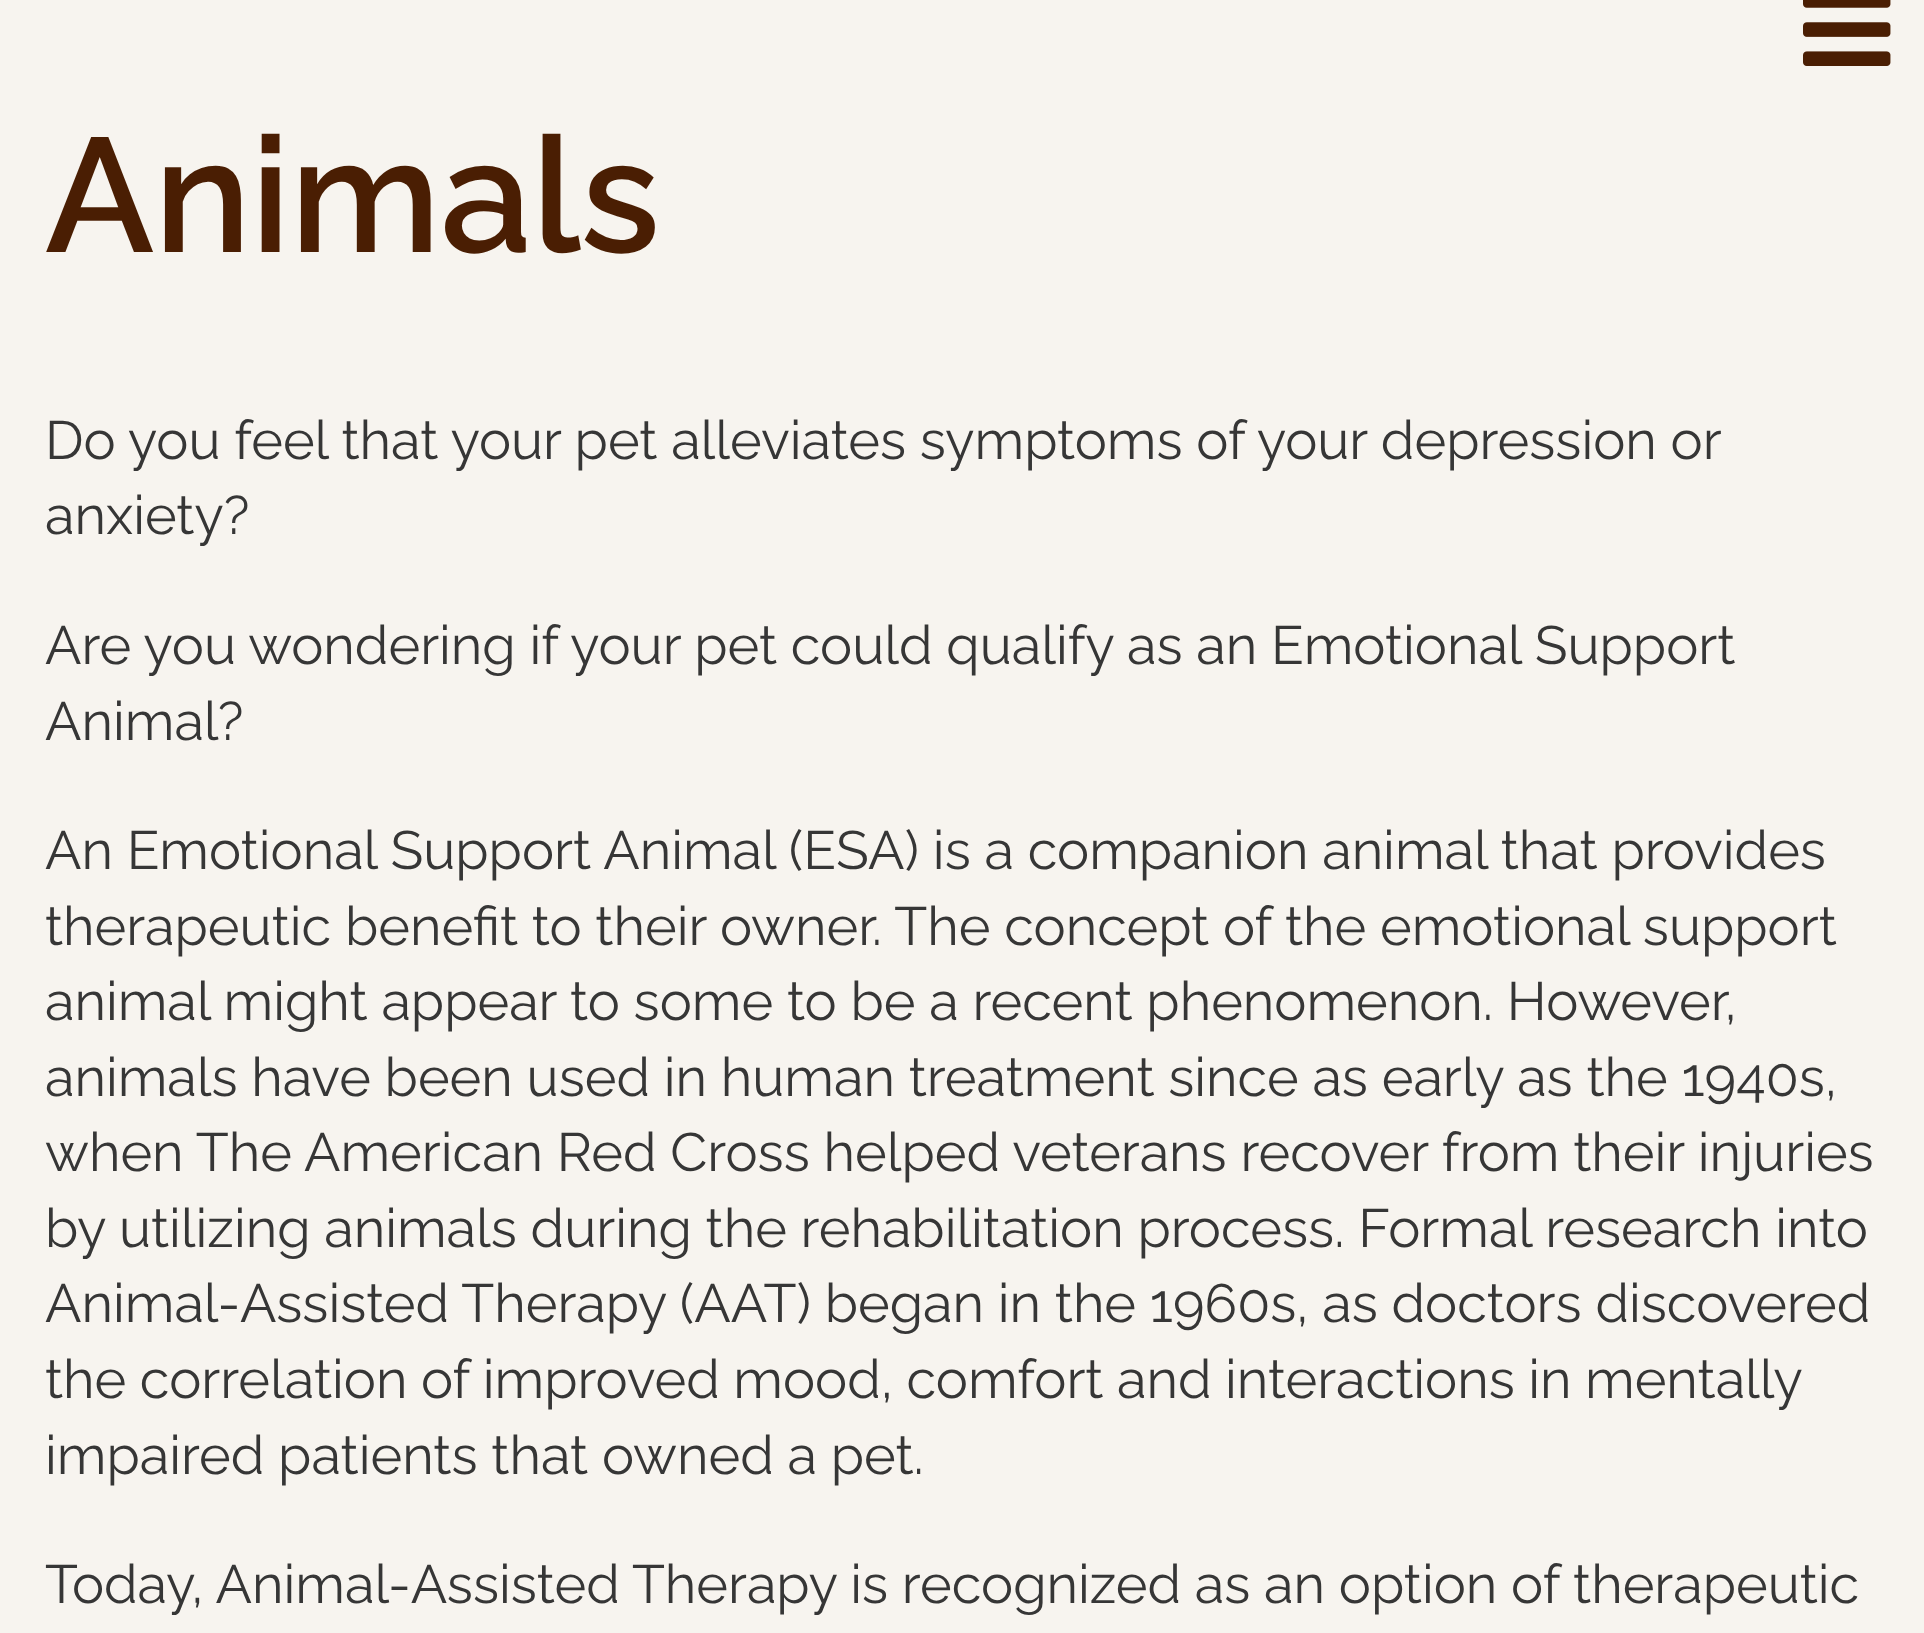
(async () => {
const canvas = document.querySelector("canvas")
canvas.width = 1924
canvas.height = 1633
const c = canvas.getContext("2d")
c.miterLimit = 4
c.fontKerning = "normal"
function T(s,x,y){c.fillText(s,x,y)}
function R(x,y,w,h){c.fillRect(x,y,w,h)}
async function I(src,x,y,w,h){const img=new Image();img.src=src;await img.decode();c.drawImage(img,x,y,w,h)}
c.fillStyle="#f7f4ef"
R(0,0,1924,1633)
await I("1.png",1803,0,88,66)
c.font="600 162px Raleway"
c.fillStyle="#4a1e03"
T("Animals",45,252)
c.font="54px Raleway"
c.fillStyle="#363636"
T("Do you feel that your pet alleviates symptoms of your depression or",45,459)
T("anxiety?",45,534)
T("Are you wondering if your pet could qualify as an Emotional Support",45,664)
T("Animal?",45,740)
T("An Emotional Support Animal (ESA) is a companion animal that provides",45,869)
T("therapeutic benefit to their owner. The concept of the emotional support",45,945)
T("animal might appear to some to be a recent phenomenon. However,",45,1020)
T("animals have been used in human treatment since as early as the 1940s,",45,1096)
T("when The American Red Cross helped veterans recover from their injuries",45,1171)
T("by utilizing animals during the rehabilitation process. Formal research into",45,1247)
T("Animal-Assisted Therapy (AAT) began in the 1960s, as doctors discovered",45,1322)
c.wordSpacing="-0.25px"
T("the correlation of improved mood, comfort and interactions in mentally",45,1398)
c.wordSpacing="0px"
T("impaired patients that owned a pet.",45,1474)
T("Today, Animal-Assisted Therapy is recognized as an option of therapeutic",45,1603)
})()
